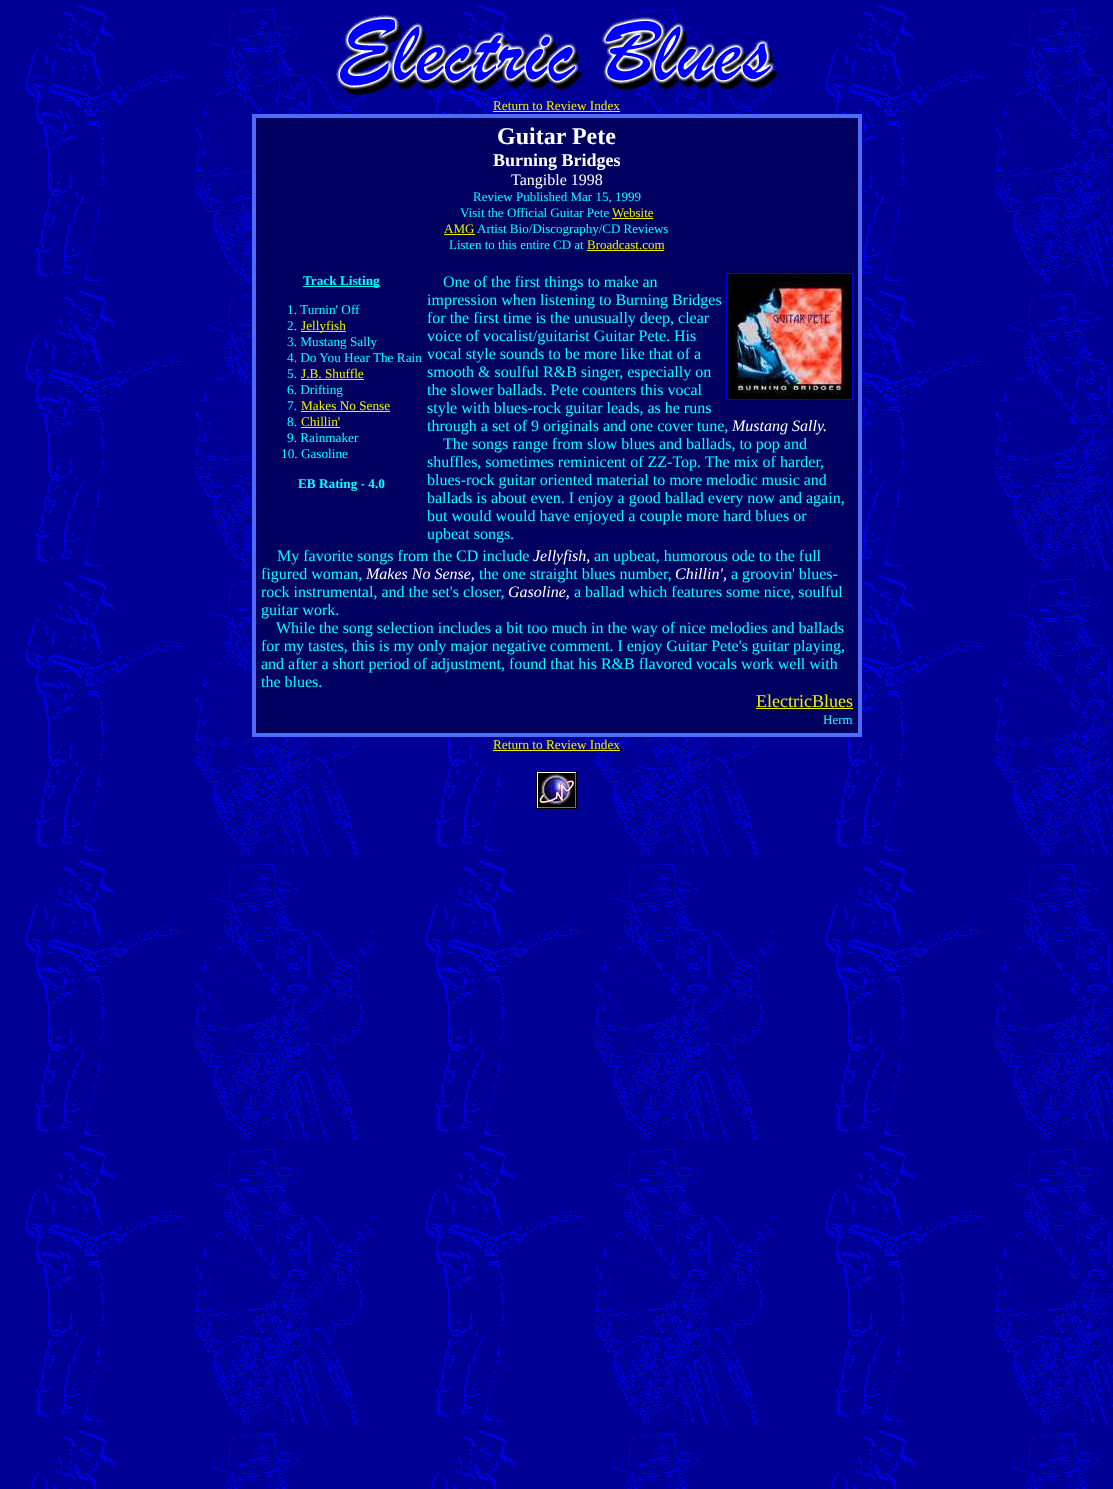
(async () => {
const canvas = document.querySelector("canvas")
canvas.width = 1113
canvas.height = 1489
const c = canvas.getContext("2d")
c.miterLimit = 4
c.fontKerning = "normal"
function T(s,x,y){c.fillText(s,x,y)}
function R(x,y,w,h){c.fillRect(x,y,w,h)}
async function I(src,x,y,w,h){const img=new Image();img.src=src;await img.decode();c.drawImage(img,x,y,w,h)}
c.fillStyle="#fff"
R(0,0,1113,1489)
await I("1.png",0,0,1113,1489)
await I("2.png",336,15,442,81)
c.font="13.25px Liberation Serif"
c.fillStyle="#ee0"
T("Return to Review Index",493,110)
R(493,111,127,1)
c.fillStyle="#000060"
R(256,118,602,615)
c.strokeStyle="#4c6cfc"
c.lineWidth=3
c.strokeRect(253.5,115.5,607,620)
c.lineWidth=1
c.strokeRect(255.5,117.5,603,616)
c.font="bold 24px Liberation Serif"
c.fillStyle="#fff"
T("Guitar Pete",497,144)
c.font="bold 18px Liberation Serif"
T("Burning Bridges",493,166)
c.font="16px Liberation Serif"
T("Tangible 1998",511,185)
c.font="13px Liberation Serif"
c.fillStyle="#0ff"
T("Review Published Mar 15, 1999",473,201)
T("Visit the Official Guitar Pete",460,217)
c.fillStyle="#ee0"
T("Website",612,217)
R(612,218,41,1)
T("AMG",444,233)
R(444,234,31,1)
c.fillStyle="#0ff"
T("Artist Bio/Discography/CD Reviews",477,233)
T("Listen to this entire CD at",449,249)
c.fillStyle="#ee0"
T("Broadcast.com",587,249)
R(587,250,77,1)
c.fillStyle="#0ff"
R(303,286,77,1)
c.font="bold 13.25px Liberation Serif"
T("Track Listing",303,285)
c.font="13.25px Liberation Serif"
T("1. Turnin' Off",287,314)
T("2.",287,330)
c.fillStyle="#ee0"
R(301,331,45,1)
T("Jellyfish",301,330)
c.fillStyle="#0ff"
T("3. Mustang Sally",287,346)
T("4. Do You Hear The Rain",287,362)
T("5.",287,378)
c.fillStyle="#ee0"
T("J.B. Shuffle",301,378)
R(301,379,63,1)
c.fillStyle="#0ff"
T("6. Drifting",287,394)
T("7.",287,410)
c.fillStyle="#ee0"
T("Makes No Sense",301,410)
R(301,411,89,1)
c.fillStyle="#0ff"
T("8.",287,426)
c.fillStyle="#ee0"
T("Chillin'",301,426)
R(301,427,39,1)
c.fillStyle="#0ff"
T("9. Rainmaker",287,442)
T("10. Gasoline",281,458)
c.font="bold 13.25px Liberation Serif"
T("EB Rating - 4.0",298,488)
c.font="16px Liberation Serif"
T("One of the first things to make an",443,287)
c.strokeStyle="#0000f0"
c.strokeRect(726.5,273.5,126,126)
await I("3.png",727,274,125,125)
T("impression when listening to Burning Bridges",427,305)
T("for the first time is the unusually deep, clear",427,323)
T("voice of vocalist/guitarist Guitar Pete. His",427,341)
T("vocal style sounds to be more like that of a",427,359)
T("smooth & soulful R&B singer, especially on",427,377)
T("the slower ballads. Pete counters this vocal",427,395)
T("style with blues-rock guitar leads, as he runs",427,413)
T("through a set of 9 originals and one cover tune,",427,431)
c.font="italic 16px Liberation Serif"
c.fillStyle="#fff"
T("Mustang Sally.",732,431)
c.font="16px Liberation Serif"
c.fillStyle="#0ff"
T("The songs range from slow blues and ballads, to pop and",443,449)
T("shuffles, sometimes reminicent of ZZ-Top. The mix of harder,",427,467)
T("blues-rock guitar oriented material to more melodic music and",427,485)
T("ballads is about even. I enjoy a good ballad every now and again,",427,503)
T("but would would have enjoyed a couple more hard blues or",427,521)
T("upbeat songs.",427,539)
T("My favorite songs from the CD include",277,561)
c.font="italic 16px Liberation Serif"
c.fillStyle="#fff"
T("Jellyfish,",533,561)
c.font="16px Liberation Serif"
c.fillStyle="#0ff"
T("an upbeat, humorous ode to the full",594,561)
T("figured woman,",261,579)
c.font="italic 16px Liberation Serif"
c.fillStyle="#fff"
T("Makes No Sense,",366,579)
c.font="16px Liberation Serif"
c.fillStyle="#0ff"
T("the one straight blues number,",479,579)
c.font="italic 16px Liberation Serif"
c.fillStyle="#fff"
T("Chillin',",675,579)
c.font="16px Liberation Serif"
c.fillStyle="#0ff"
T("a groovin' blues-",731,579)
T("rock instrumental, and the set's closer,",261,597)
c.font="italic 16px Liberation Serif"
c.fillStyle="#fff"
T("Gasoline,",508,597)
c.font="16px Liberation Serif"
c.fillStyle="#0ff"
T("a ballad which features some nice, soulful",574,597)
T("guitar work.",261,615)
T("While the song selection includes a bit too much in the way of nice melodies and ballads",276,633)
T("for my tastes, this is my only major negative comment. I enjoy Guitar Pete's guitar playing,",261,651)
T("and after a short period of adjustment, found that his R&B flavored vocals work well with",261,669)
T("the blues.",261,687)
c.font="18px Liberation Serif"
c.fillStyle="#ee0"
T("ElectricBlues",756,707)
R(756,708,97,1)
c.font="13px Liberation Serif"
c.fillStyle="#0ff"
T("Herm",823,724)
c.font="13.25px Liberation Serif"
c.fillStyle="#ee0"
T("Return to Review Index",493,749)
R(493,750,127,1)
await I("4.png",536,771,41,38)
})()
